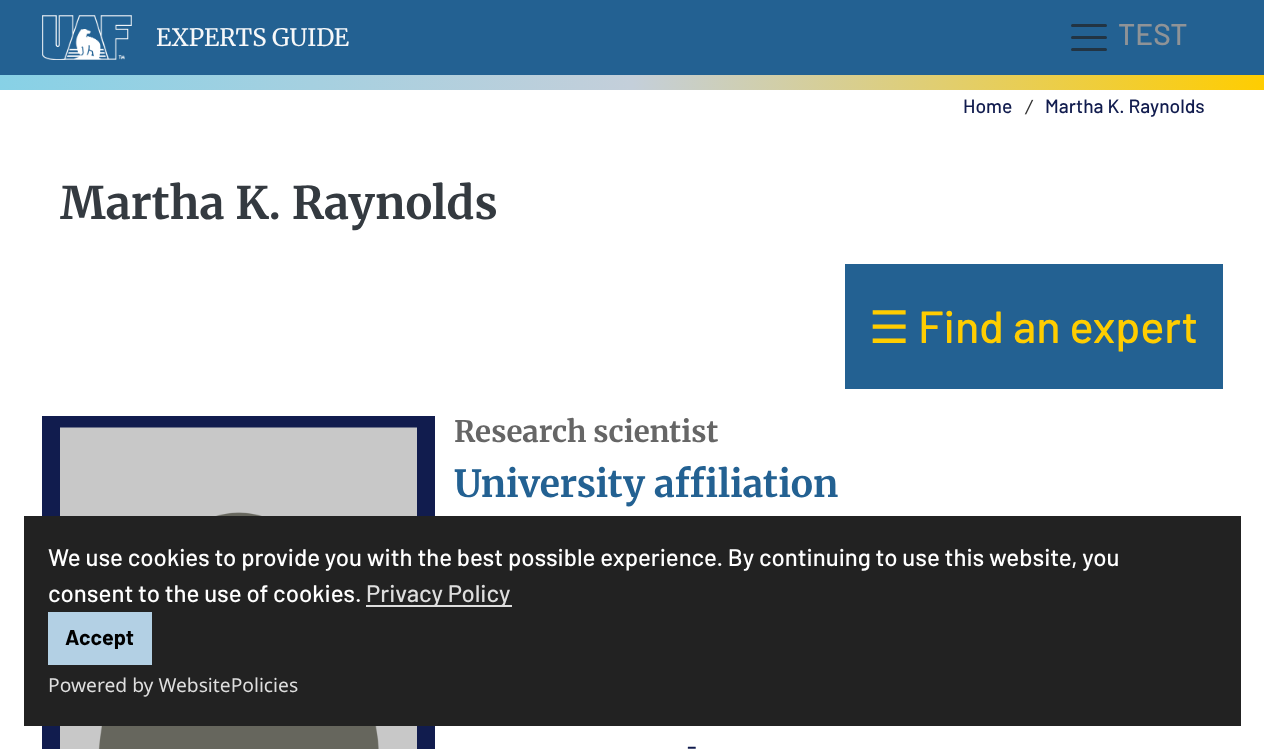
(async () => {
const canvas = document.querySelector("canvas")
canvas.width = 1264
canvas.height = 749
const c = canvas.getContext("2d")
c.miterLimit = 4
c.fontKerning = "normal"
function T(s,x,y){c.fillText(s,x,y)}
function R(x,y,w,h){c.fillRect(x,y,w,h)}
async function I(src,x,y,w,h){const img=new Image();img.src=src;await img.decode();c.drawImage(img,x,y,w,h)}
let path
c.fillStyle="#fff"
R(0,0,1264,749)
c.fillStyle="#236192"
R(0,0,1264,75)
await I("1.png",0,75,1264,15)
await I("2.png",42,15,90,45)
c.font="24px Merriweather"
c.fillStyle="#f7f8f9"
T("EXPERTS GUIDE",156,46)
path = new Path2D("M1072.5 25.5h33m-33 12h33m-33 12h33")
c.strokeStyle="#223443"
c.lineWidth=3
c.lineCap="round"
c.stroke(path)
c.font="500 30px Barlow"
c.fillStyle="#8f9397"
T("TEST",1118,45)
c.font="500 19.25px Barlow"
c.fillStyle="#111c4e"
T("Home",963,113)
await I("3.png",1024,99,10,16)
T("Martha K. Raynolds",1045,113)
c.font="bold 44.9px Merriweather"
c.fillStyle="#343a40"
T("Martha K. Raynolds",60,219)
c.fillStyle="#236192"
R(845,264,378,125)
c.font="45px DejaVu Sans"
c.fillStyle="#ffcd00"
T("☰",869,343)
c.font="500 45px Barlow"
T("Find an expert",918,343)
c.fillStyle="#111c4e"
R(42,416,393,333)
await I("4.png",60,427,357,322)
c.font="bold 29.5px Merriweather"
c.fillStyle="#666"
T("Research scientist",454,442)
c.font="bold 37.25px Merriweather"
c.fillStyle="#236192"
T("University affiliation",454,497)
c.font="500 24px Barlow"
c.fillStyle="#111c4e"
T("-",687,755)
c.fillStyle="#222"
R(24,516,1217,210)
c.fillStyle="#fff"
T("We use cookies to provide you with the best possible experience. By continuing to use this website, you",48,566)
T("consent to the use of cookies.",48,602)
c.fillStyle="#dedede"
R(366,605,146,2)
T("Privacy Policy",366,602)
c.fillStyle="#b3d0e4"
R(48,612,104,53)
c.font="bold 21.5px Barlow"
c.fillStyle="#000"
T("Accept",65,645)
c.font="19.25px Noto Sans"
c.fillStyle="#dedede"
T("Powered by WebsitePolicies",48,692)
})()
